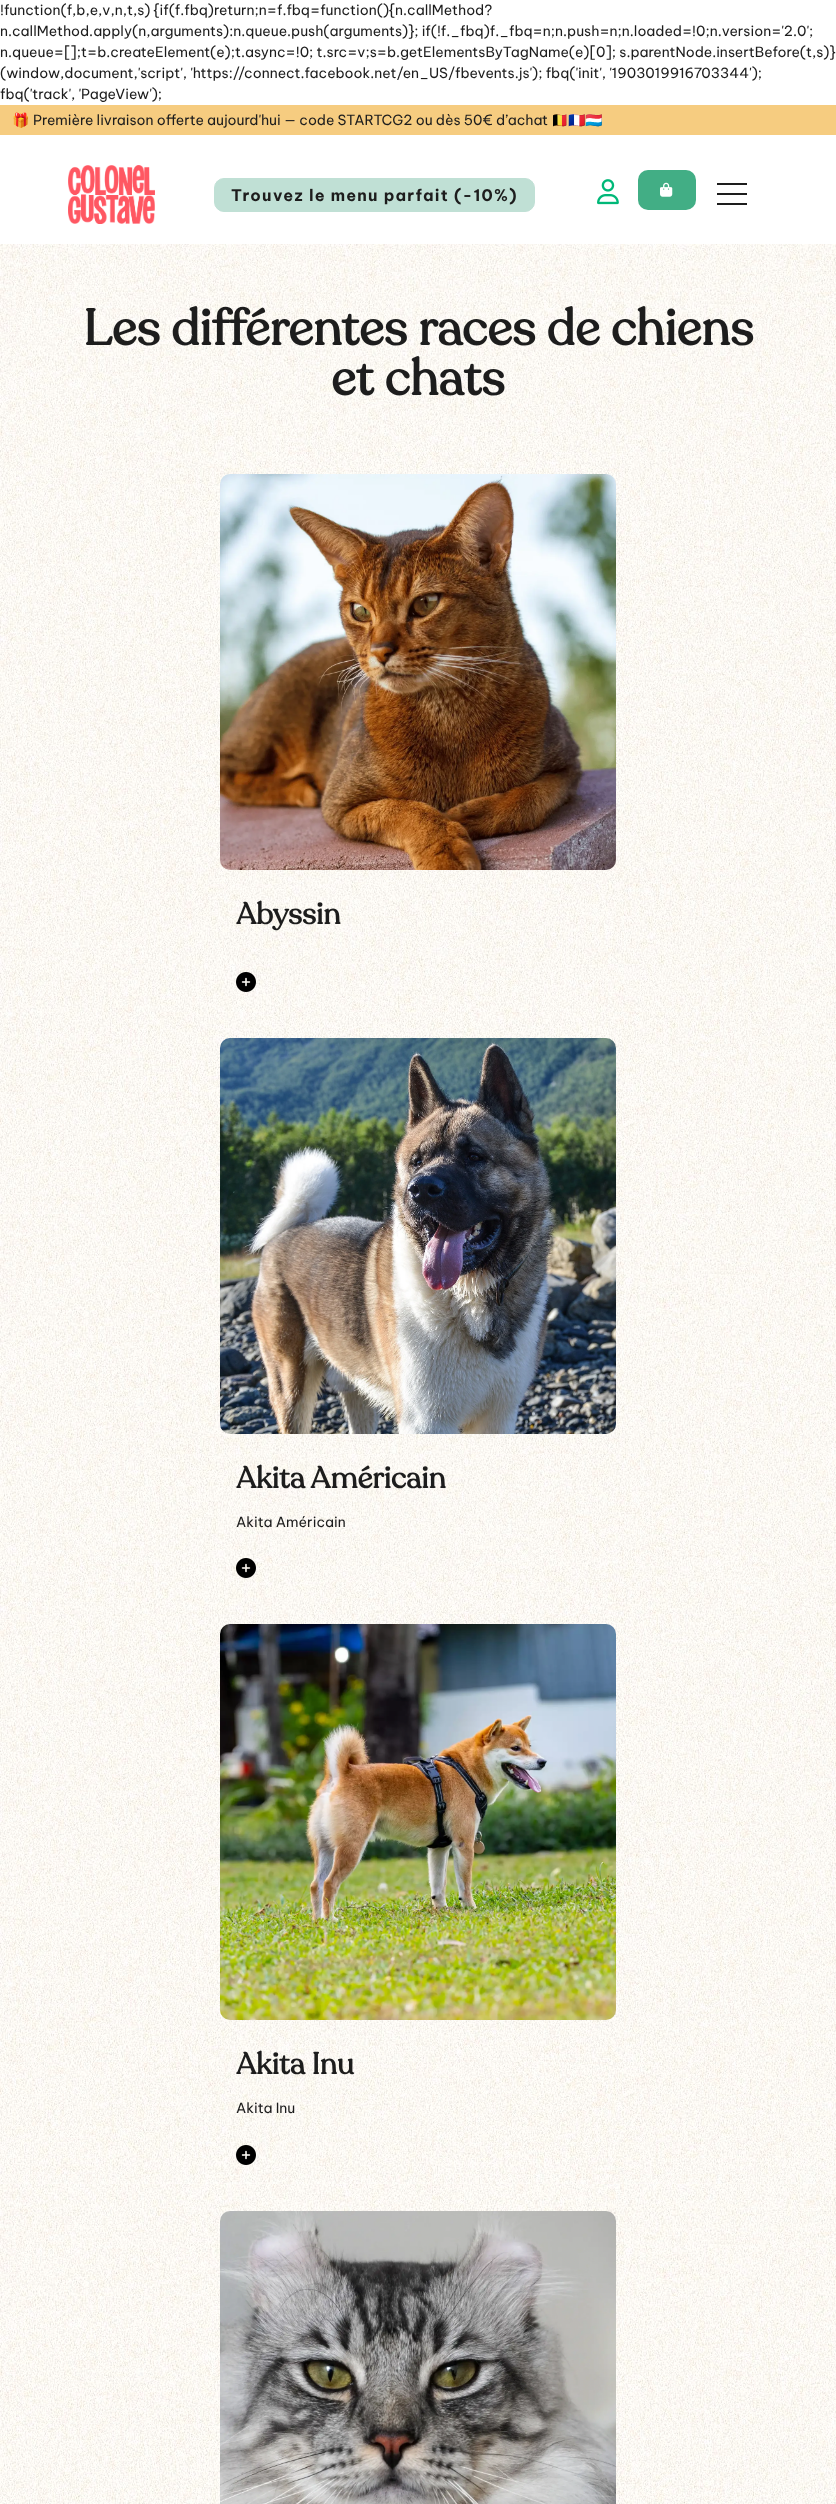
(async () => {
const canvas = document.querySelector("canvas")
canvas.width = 836
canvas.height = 2504
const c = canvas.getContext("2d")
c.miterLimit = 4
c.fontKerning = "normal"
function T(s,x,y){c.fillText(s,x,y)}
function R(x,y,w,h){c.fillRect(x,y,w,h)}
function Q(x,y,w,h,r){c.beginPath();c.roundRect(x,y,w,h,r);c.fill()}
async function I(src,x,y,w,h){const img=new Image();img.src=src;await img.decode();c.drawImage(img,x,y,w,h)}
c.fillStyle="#fff"
R(0,0,836,2504)
c.font="14px Be Vietnam Pro"
c.fillStyle="#1d1d1d"
T("!function(f,b,e,v,n,t,s) {if(f.fbq)return;n=f.fbq=function(){n.callMethod?",0,15)
T("n.callMethod.apply(n,arguments):n.queue.push(arguments)}; if(!f._fbq)f._fbq=n;n.push=n;n.loaded=!0;n.version='2.0';",0,36)
T("n.queue=[];t=b.createElement(e);t.async=!0; t.src=v;s=b.getElementsByTagName(e)[0]; s.parentNode.insertBefore(t,s)}",0,57)
T("(window,document,'script', 'https://connect.facebook.net/en_US/fbevents.js'); fbq('init', '1903019916703344');",0,78)
T("fbq('track', 'PageView');",0,99)
c.fillStyle="#f6cc80"
R(0,105,836,30)
c.font="14px Noto Color Emoji"
c.fillStyle="#1d1d1d"
T("🎁",12,125)
c.font="14px Be Vietnam Pro"
T("Première livraison offerte aujourd'hui — code STARTCG2 ou dès 50€ d’achat",33,125)
c.font="14px Noto Color Emoji"
T("🇧🇪🇫🇷🇱🇺",551,125)
await I("1.png",68,165,87,59)
c.fillStyle="#c0e0d5"
c.beginPath()
c.roundRect(214.5,178.5,320,33,9.5)
c.fill()
c.strokeStyle="#c0e0d5"
c.stroke()
c.letterSpacing="1.25px"
c.font="bold 16px Be Vietnam Pro"
c.fillStyle="#1d1d1d"
T("Trouvez le menu parfait (-10%)",231,201)
await I("2.png",597,179,22,26)
c.fillStyle="#42ae85"
Q(638,170,58,40,10)
await I("3.png",660,182,13,15)
c.fillStyle="#1d1d1d"
R(717,183,30,2)
R(717,193,30,2)
R(717,203,30,2)
await I("4.png",0,244,836,2260)
c.letterSpacing="0px"
c.font="bold 50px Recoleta"
T("Les différentes races de chiens",83,345)
T("et chats",331,395)
await I("5.png",220,474,396,396)
c.font="bold 30px Recoleta"
T("Abyssin",236,924)
await I("6.png",236,972,20,20)
await I("7.png",220,1038,396,396)
T("Akita Américain",236,1488)
c.font="14px Be Vietnam Pro"
T("Akita Américain",236,1527)
await I("8.png",236,1558,20,20)
await I("9.png",220,1624,396,396)
c.font="bold 30px Recoleta"
T("Akita Inu",236,2074)
c.font="14px Be Vietnam Pro"
T("Akita Inu",236,2113)
await I("10.png",236,2145,20,20)
await I("11.png",220,2211,396,293)
})()
